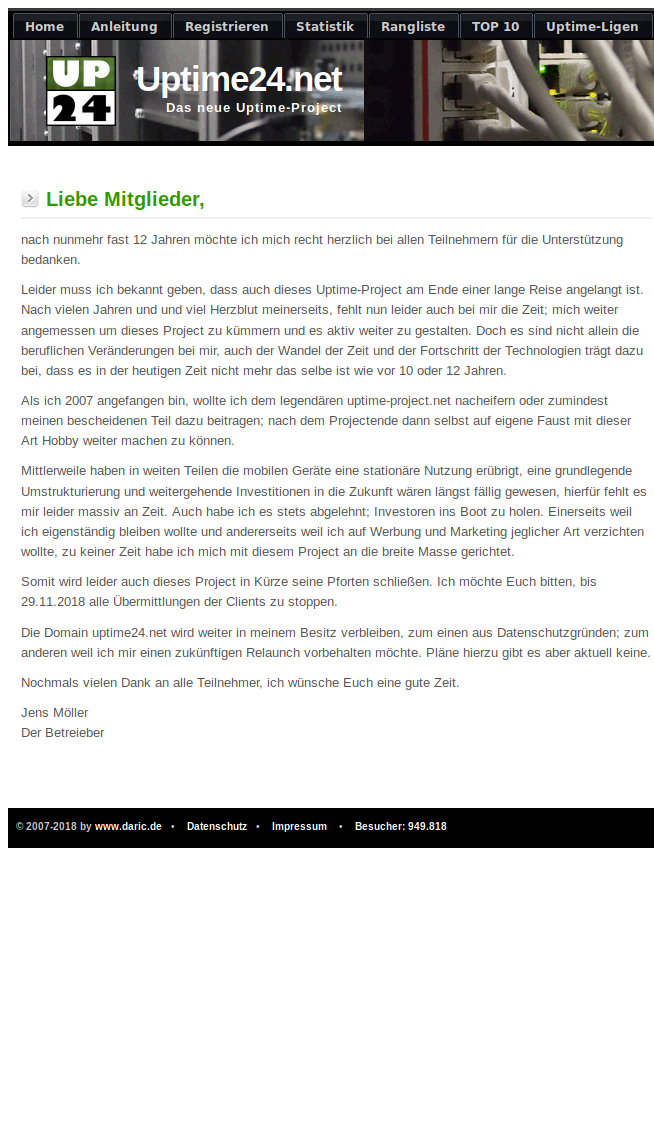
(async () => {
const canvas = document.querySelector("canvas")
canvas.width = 654
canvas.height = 1131
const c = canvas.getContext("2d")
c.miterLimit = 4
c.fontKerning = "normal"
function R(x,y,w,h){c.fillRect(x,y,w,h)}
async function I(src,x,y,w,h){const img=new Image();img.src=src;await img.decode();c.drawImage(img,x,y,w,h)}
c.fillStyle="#fff"
R(0,0,654,1131)
await I("1.png",8,8,646,840)
})()
